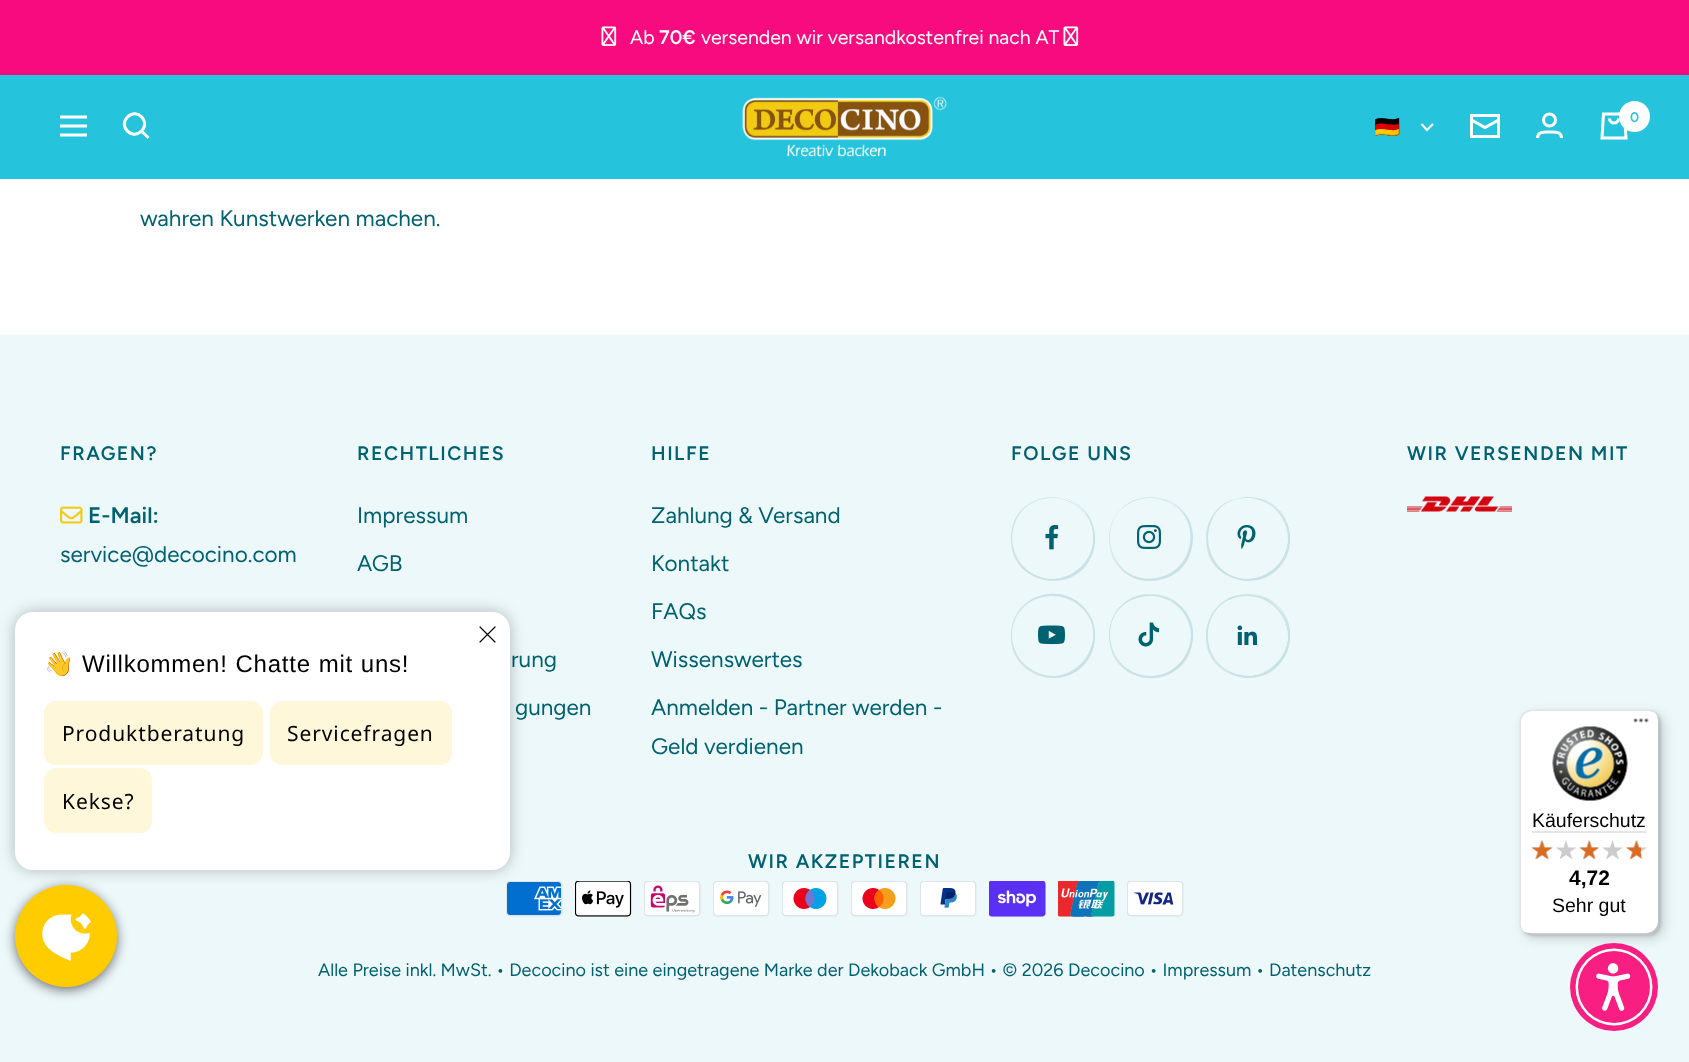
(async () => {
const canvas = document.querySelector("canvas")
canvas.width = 1689
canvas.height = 1062
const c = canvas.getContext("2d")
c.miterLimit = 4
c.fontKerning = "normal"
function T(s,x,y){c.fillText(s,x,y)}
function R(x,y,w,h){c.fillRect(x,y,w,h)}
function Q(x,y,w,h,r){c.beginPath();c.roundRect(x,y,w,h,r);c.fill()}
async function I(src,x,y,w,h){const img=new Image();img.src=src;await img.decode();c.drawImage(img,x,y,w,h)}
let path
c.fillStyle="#fff"
R(0,0,1689,1062)
c.fillStyle="#f70b7e"
R(0,0,1689,75)
await I("1.png",601,26,16,20)
c.font="19.5px Figtree"
c.fillStyle="#fff"
T("Ab",630,44)
c.font="600 19.5px Figtree"
T("70€",659,44)
c.font="19.5px Figtree"
T("versenden wir versandkostenfrei nach AT",701,44)
await I("1.png",1063,26,16,20)
c.fillStyle="#26c4dc"
R(0,75,1689,104)
path = new Path2D("M60 117h27m-27 18h27zm0-9h27z")
c.strokeStyle="#fff"
c.lineWidth=3
c.stroke(path)
path = new Path2D("M141.5 131c9.5-9.5-4.5-23.5-14-14c-9.5 9.5 4.5 23.5 14 14zm0 0l7 7")
c.stroke(path)
await I("2.png",742,96,205,61)
c.font="21px Noto Color Emoji"
c.fillStyle="#fff"
T("🇩🇪",1374,134)
path = new Path2D("M1421.5 124l5.5 6l6-6")
c.lineWidth=2.2
c.stroke(path)
path = new Path2D("M1498.5 120l-13.5 7.5l-13.5-7.5m0-4.5h27v21h-27z")
c.lineWidth=3
c.stroke(path)
c.beginPath()
c.arc(1549.5,120,6,0,7)
c.stroke()
path = new Path2D("M1537.5 138c0-7 7.5-6 12-6c4.5 0 12-1 12 6")
c.stroke(path)
path = new Path2D("M1603.5 114h21l1.5 24h-24zm6 4.5c0 6 9 6 9 0")
c.stroke(path)
c.beginPath()
c.arc(1634.5,116.5,15.5,0,7)
c.fill()
c.font="600 14px Figtree"
c.fillStyle="#26c4dc"
T("0",1630,122)
c.font="22.5px Figtree"
c.fillStyle="#006271"
T("wahren Kunstwerken machen.",140,226)
c.fillStyle="#edf8fb"
R(0,335,1689,727)
c.letterSpacing="1.5px"
c.font="600 19.5px Figtree"
c.fillStyle="#006271"
T("FRAGEN?",60,460)
await I("3.png",60,506,23,18)
c.letterSpacing="0px"
c.font="600 22.5px Figtree"
T("E-Mail:",88,523)
c.font="22.5px Figtree"
T("service@decocino.com",60,562)
c.letterSpacing="1.5px"
c.font="600 19.5px Figtree"
T("RECHTLICHES",357,460)
c.letterSpacing="0px"
c.font="22.5px Figtree"
T("Impressum",357,523)
T("AGB",357,571)
T("rung",511,667)
T("gungen",515,715)
c.letterSpacing="1.5px"
c.font="600 19.5px Figtree"
T("HILFE",651,460)
c.letterSpacing="0px"
c.font="22.5px Figtree"
T("Zahlung & Versand",651,523)
T("Kontakt",651,571)
T("FAQs",651,619)
T("Wissenswertes",651,667)
T("Anmelden - Partner werden -",651,715)
T("Geld verdienen",651,754)
c.letterSpacing="1.5px"
c.font="600 19.5px Figtree"
T("FOLGE UNS",1011,460)
c.fillStyle="#c9e2e6"
path = new Path2D("M1023 567c15 17 43 19 60 2c17-17 16-46-2-61c16 16 17 43 0 59c-16 16-42 16-58 0z")
c.fill(path)
path = new Path2D("M1011 539c-1 45 62 58 80 17c4-9 4-20 1-29c11 40-39 70-69 40c-7-7-12-18-12-28z")
c.fill(path)
path = new Path2D("M1053 579c9 0 17-2 24-7c29-20 21-65-12-74c44 14 35 80-12 81z")
c.fill(path)
path = new Path2D("M1052 498c23 0 42 18 42 41c0-41-53-57-76-24c-5 7-7 15-7 23c0-22 18-40 41-40z")
c.fill(path)
path = new Path2D("M1053 579c-43-1-56-57-19-78c-39 19-25 79 19 78z")
c.fill(path)
await I("4.png",1045,525,14,25)
path = new Path2D("M1119 565c15 19 44 21 62 4c17-18 15-47-4-62c18 15 19 43 2 60c-17 17-45 16-60-2z")
c.fill(path)
path = new Path2D("M1110 548c1 7 4 13 9 19c25 29 73 10 72-29c-1 48-70 56-81 10z")
c.fill(path)
path = new Path2D("M1150 579c39 1 58-47 29-72c-6-5-12-8-19-9c46 11 38 80-10 81z")
c.fill(path)
path = new Path2D("M1150 498c23 0 41 18 41 40c0-39-49-55-73-26c8-8 19-14 32-14z")
c.fill(path)
path = new Path2D("M1150 579c-38 0-54-49-26-73c-29 24-13 73 26 73z")
c.fill(path)
await I("5.png",1137,525,24,24)
path = new Path2D("M1218 567c15 17 43 19 60 2c17-17 16-46-2-61c16 16 17 43 0 59c-16 16-42 16-58 0z")
c.fill(path)
path = new Path2D("M1206 539c-1 45 62 58 80 17c4-9 4-20 1-29c11 40-39 70-69 40c-7-7-12-18-12-28z")
c.fill(path)
path = new Path2D("M1248 579c9 0 17-2 24-7c29-20 21-65-12-74c44 14 35 80-12 81z")
c.fill(path)
path = new Path2D("M1247 498c34 0 53 39 33 66c17-21 9-53-16-64c-5-2-12-3-17-3c-12 1-21 4-29 12c-8 8-12 19-12 29c0-22 18-40 41-40z")
c.fill(path)
path = new Path2D("M1248 579c-43-1-55-59-17-79c-41 18-28 80 17 79z")
c.fill(path)
await I("6.png",1237,525,19,24)
path = new Path2D("M1027 668c16 14 41 13 56-2c15-15 16-40 2-56c29 38-20 87-58 58z")
c.fill(path)
path = new Path2D("M1011 636c-1 45 62 58 80 17c3-9 4-19 1-28c10 39-39 69-69 40c-7-8-12-18-12-29z")
c.fill(path)
path = new Path2D("M1054 594h-1c11 0 21 5 29 12c29 30-1 79-40 69c41 13 71-39 41-69c-8-8-18-12-29-12z")
c.fill(path)
path = new Path2D("M1052 596c23 0 42 18 42 40c0-8-2-17-7-24c-23-34-77-17-76 24c0-22 18-40 41-40z")
c.fill(path)
path = new Path2D("M1052 594c-22 0-41 19-41 42c0 22 19 41 41 41c9 0 16-2 23-6c-6 3-13 5-21 5c-23 0-42-18-42-41c0-23 19-41 41-41z")
c.fill(path)
await I("7.png",1038,625,27,20)
path = new Path2D("M1120 664c15 18 44 19 61 2c17-17 15-45-2-60c16 16 16 42 0 58c-16 17-43 16-59 0z")
c.fill(path)
path = new Path2D("M1110 648c9 33 54 41 74 12c5-7 7-15 7-24c-1 47-67 56-81 12z")
c.fill(path)
path = new Path2D("M1152 594h-1c10 0 21 5 28 12c30 30 0 80-40 69c40 13 73-38 42-69c-8-8-19-12-29-12z")
c.fill(path)
path = new Path2D("M1150 596c23 0 41 18 41 40c1-45-61-58-79-17c7-14 22-23 38-23z")
c.fill(path)
path = new Path2D("M1150 594c-23 0-41 18-41 41v1c0 23 18 41 41 41c10 0 19-3 26-9c-7 5-16 8-25 8c-23 0-41-18-41-41c0-23 18-41 40-41z")
c.fill(path)
await I("8.png",1138,622,22,25)
path = new Path2D("M1222 668c16 14 41 13 56-2c15-15 16-40 2-56c29 38-20 87-58 58z")
c.fill(path)
path = new Path2D("M1206 636c-1 45 62 58 80 17c3-9 4-19 1-28c10 39-39 69-69 40c-7-8-12-18-12-29z")
c.fill(path)
path = new Path2D("M1249 594h-1c11 0 21 5 29 12c29 30-1 79-40 69c41 13 71-39 41-69c-8-8-18-12-29-12z")
c.fill(path)
path = new Path2D("M1247 596c32 0 51 35 36 62c19-30-8-70-44-63c-8 1-15 5-21 11c-8 8-12 19-12 30c0-22 18-40 41-40z")
c.fill(path)
path = new Path2D("M1248 594c-23 0-42 19-42 42c0 22 19 41 42 41c8 0 15-2 22-6c-9 5-19 6-29 4c-48-9-42-80 7-81z")
c.fill(path)
await I("9.png",1237,625,20,20)
c.fillStyle="#006271"
T("WIR VERSENDEN MIT",1407,460)
await I("10.png",1407,496,105,16)
T("WIR AKZEPTIEREN",748,868)
await I("11.png",506,881,57,36)
await I("12.png",575,881,57,36)
await I("13.png",644,881,57,36)
await I("14.png",713,881,57,36)
await I("15.png",782,881,57,36)
await I("16.png",851,881,57,36)
await I("17.png",920,881,57,36)
await I("18.png",989,881,57,36)
await I("19.png",1058,881,57,36)
await I("20.png",1127,881,57,36)
c.letterSpacing="0px"
c.font="18px Figtree"
T("Alle Preise inkl. MwSt. • Decocino ist eine eingetragene Marke der Dekoback GmbH • © 2026 Decocino • Impressum • Datenschutz",318,976)
c.fillStyle="#0000008c"
c.filter="blur(6px)"
c.beginPath()
c.roundRect(15,888,102,102,51)
c.fill()
c.filter="none"
c.fillStyle="#fc0"
c.beginPath()
c.arc(66,936,51,0,7)
c.fill()
c.fillStyle="#00000040"
c.filter="blur(7.5px)"
c.beginPath()
c.roundRect(15,612,495,258,18)
c.fill()
c.filter="none"
c.fillStyle="#fff"
Q(15,612,495,258,18)
path = new Path2D("M480 642l15-15m-15 0l15 15")
c.strokeStyle="#000"
c.lineWidth=1.2
c.lineCap="round"
c.lineJoin="round"
c.stroke(path)
c.letterSpacing="0.75px"
c.font="24px Noto Color Emoji"
c.fillStyle="#000"
T("👋",44,672)
c.wordSpacing="0.5px"
c.font="24px Liberation Sans"
T("Willkommen! Chatte mit uns!",82,672)
c.fillStyle="#fff7d9"
Q(44,701,219,64,12)
c.letterSpacing="0.9px"
c.wordSpacing="0px"
c.font="21px Noto Sans"
c.fillStyle="#000"
T("Produktberatung",62,741)
c.fillStyle="#fff7d9"
Q(270,701,182,64,12)
c.fillStyle="#000"
T("Servicefragen",287,741)
c.fillStyle="#fff7d9"
Q(44,768,108,65,12)
c.fillStyle="#000"
T("Kekse?",62,809)
await I("21.png",42,913,49,48)
c.fillStyle="#00000026"
c.filter="blur(6px)"
c.beginPath()
c.roundRect(1524,714,140,225,12)
c.fill()
c.filter="none"
c.filter="blur(1.5px)"
c.beginPath()
c.roundRect(1521,711,140,225,12)
c.fill()
c.filter="none"
c.fillStyle="#fff"
Q(1520,710,139,225,12)
c.fillStyle="#0000001a"
path = new Path2D("M1533 711h115c3 0 5 1 7 2c-2-2-5-3-8-3h-115c-7 0-12 5-12 12v201c0 3 1 6 3 8c-1-2-2-4-2-7v-201c0-7 5-12 12-12z")
c.fill(path)
c.fillStyle="#00000033"
path = new Path2D("M1523 931c2 2 5 4 9 4h115c7 0 12-5 12-12v-201c0-2-1-5-2-6l1 4v201c0 7-6 12-12 12h-116c-3 0-5-1-7-2z")
c.fill(path)
c.fillStyle="#32323233"
path = new Path2D("M1523 931c2 2 5 4 9 4h115c7 0 12-5 12-12v-201c0-3-1-6-3-8c1 2 2 4 2 7v201c0 6-5 12-12 12h-115c-3 0-6-1-8-3z")
c.fill(path)
c.fillStyle="#ffffff4d"
path = new Path2D("M1523 931c2 2 5 4 9 4h115c7 0 12-5 12-12v-201c0-3-1-6-3-8c1 2 2 4 2 7v201c0 6-5 12-12 12h-115c-3 0-6-1-8-3z")
c.fill(path)
await I("22.png",1633,718,16,5)
await I("23.png",1552,726,76,75)
c.letterSpacing="0px"
c.font="19.5px Liberation Sans"
c.fillStyle="#000"
T("Käuferschutz",1532,827)
c.fillStyle="#e5e5e5"
R(1532,831,115,2)
await I("24.png",1531,840,22,20)
await I("25.png",1556,840,20,19)
await I("26.png",1579,840,20,20)
await I("27.png",1602,840,21,19)
await I("28.png",1626,840,21,20)
await I("29.png",1531,840,22,19)
await I("30.png",1579,840,20,19)
await I("31.png",1626,840,15,19)
c.font="bold 21px Liberation Sans"
c.fillStyle="#000"
T("4,72",1569,885)
c.font="19.5px Liberation Sans"
T("Sehr gut",1552,912)
c.fillStyle="#f91e81"
c.beginPath()
c.arc(1614,987,44,0,7)
c.fill()
c.fillStyle="#fff"
c.beginPath()
c.arc(1614,987,38.5,0,7)
c.fill()
c.fillStyle="#f91e81"
c.beginPath()
c.arc(1614,987,36,0,7)
c.fill()
await I("32.png",1596,963,35,48)
})()
